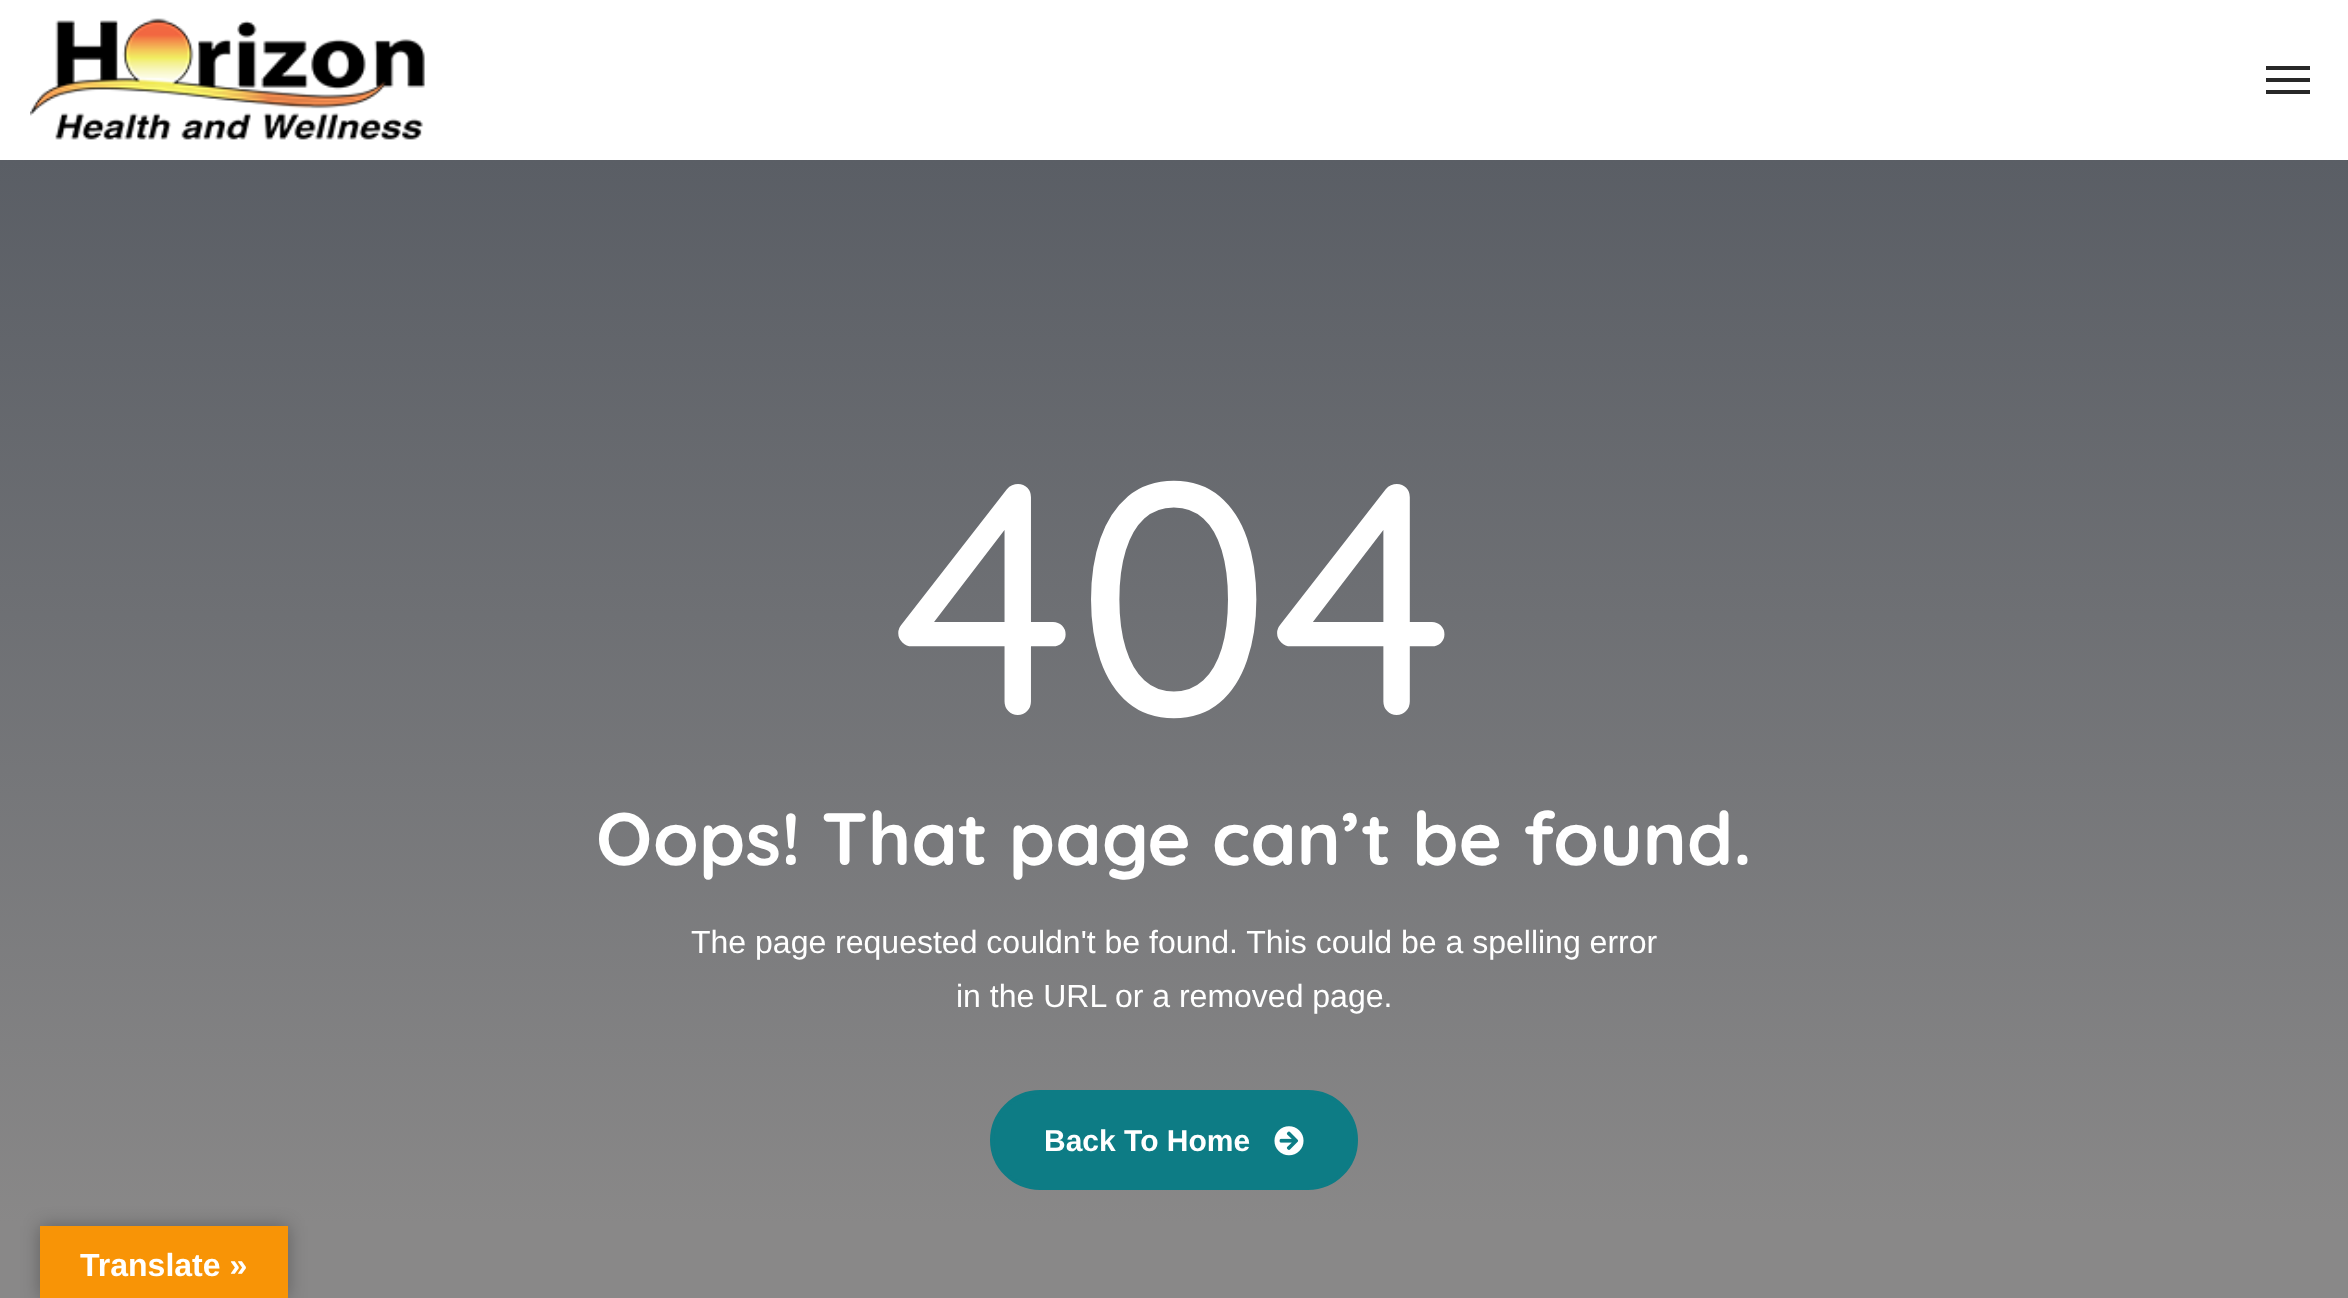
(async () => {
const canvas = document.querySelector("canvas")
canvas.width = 2348
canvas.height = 1298
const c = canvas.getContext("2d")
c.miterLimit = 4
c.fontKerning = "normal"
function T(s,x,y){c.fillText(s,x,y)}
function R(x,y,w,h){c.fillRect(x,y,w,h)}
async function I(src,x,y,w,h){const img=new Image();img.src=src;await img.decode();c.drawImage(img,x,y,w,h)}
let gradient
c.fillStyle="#fff"
R(0,0,2348,1298)
await I("1.png",30,18,395,122)
c.fillStyle="#282828"
R(2266,66,44,4)
R(2266,78,44,4)
R(2266,90,44,4)
gradient = c.createLinearGradient(1174,160,1174,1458)
gradient.addColorStop(0,"#5a5e65")
gradient.addColorStop(.82,"#898888")
c.fillStyle = gradient
R(0,160,2348,1138)
c.font="500 330px Quicksand"
c.fillStyle="#fff"
T("404",894,715)
c.font="bold 74px Quicksand"
T("Oops! That page can’t be found.",596,865)
c.font="32px Liberation Sans"
T("The page requested couldn't be found. This could be a spelling error",691,953)
T("in the URL or a removed page.",956,1007)
c.fillStyle="#0d7c85"
c.beginPath()
c.roundRect(992,1092,364,96,48)
c.fill()
c.strokeStyle="#0d7c85"
c.lineWidth=4
c.stroke()
c.font="bold 30px Liberation Sans"
c.fillStyle="#fff"
T("Back To Home",1044,1151)
await I("2.png",1274,1126,30,30)
c.fillStyle="#0000004d"
c.filter="blur(9px)"
c.beginPath()
c.rect(40,1226,248,72)
c.fill()
c.filter="none"
c.fillStyle="#f89406"
R(40,1226,248,72)
c.font="bold 32px Liberation Sans"
c.fillStyle="#fff"
T("Translate »",80,1276)
})()
